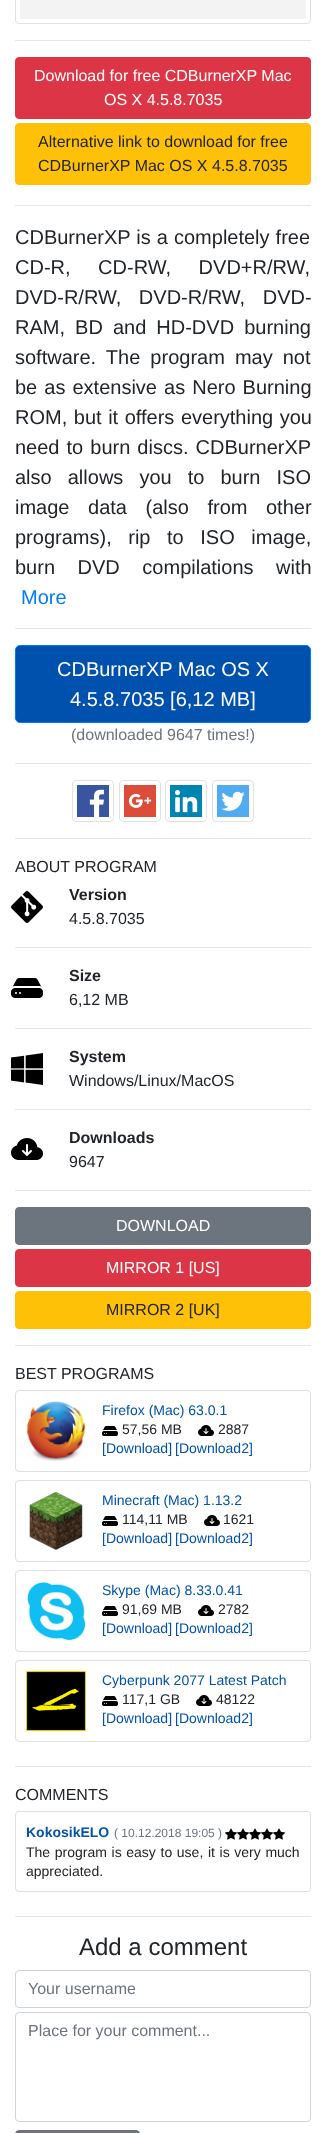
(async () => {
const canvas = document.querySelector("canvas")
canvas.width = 326
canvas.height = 2133
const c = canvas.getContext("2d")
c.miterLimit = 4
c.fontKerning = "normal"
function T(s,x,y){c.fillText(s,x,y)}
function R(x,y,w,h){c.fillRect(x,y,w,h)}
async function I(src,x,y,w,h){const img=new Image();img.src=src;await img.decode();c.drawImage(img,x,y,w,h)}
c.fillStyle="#fff"
R(0,0,326,2133)
c.beginPath()
c.roundRect(15.5,-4.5,295,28,3.5)
c.strokeStyle="#dee2e6"
c.stroke()
c.fillStyle="#f3f3f3"
R(20,0,286,19)
c.fillStyle="#e6e6e6"
R(15,40,296,1)
c.fillStyle="#dc3545"
c.beginPath()
c.roundRect(15.5,57.5,295,61,3.5)
c.fill()
c.strokeStyle="#dc3545"
c.stroke()
c.font="16px Liberation Sans"
c.fillStyle="#fff"
T("Download for free CDBurnerXP Mac",34,81)
T("OS X 4.5.8.7035",104,105)
c.fillStyle="#ffc107"
c.beginPath()
c.roundRect(15.5,123.5,295,61,3.5)
c.fill()
c.strokeStyle="#ffc107"
c.stroke()
c.fillStyle="#212529"
T("Alternative link to download for free",38,147)
T("CDBurnerXP Mac OS X 4.5.8.7035",38,171)
c.fillStyle="#e6e6e6"
R(15,205,296,1)
c.wordSpacing="0.5px"
c.font="20px Liberation Sans"
c.fillStyle="#212529"
T("CDBurnerXP is a completely free",15,244)
c.wordSpacing="22px"
T("CD-R, CD-RW, DVD+R/RW,",15,274)
c.wordSpacing="12px"
T("DVD-R/RW, DVD-R/RW, DVD-",15,304)
c.wordSpacing="4.5px"
T("RAM, BD and HD-DVD burning",15,334)
T("software. The program may not",15,364)
c.wordSpacing="1.5px"
T("be as extensive as Nero Burning",15,394)
c.wordSpacing="1px"
T("ROM, but it offers everything you",15,424)
c.wordSpacing="1.5px"
T("need to burn discs. CDBurnerXP",15,454)
c.wordSpacing="10.5px"
T("also allows you to burn ISO",15,484)
c.wordSpacing="13px"
T("image data (also from other",15,514)
c.wordSpacing="11px"
T("programs), rip to ISO image,",15,544)
c.wordSpacing="17px"
T("burn DVD compilations with",15,574)
c.wordSpacing="0px"
c.fillStyle="#007bff"
T("More",21,604)
c.fillStyle="#e6e6e6"
R(15,628,296,1)
c.fillStyle="#0051ad"
c.beginPath()
c.roundRect(15.5,645.5,295,77,4.5)
c.fill()
c.strokeStyle="#007bff"
c.stroke()
c.fillStyle="#fff"
T("CDBurnerXP Mac OS X",57,676)
T("4.5.8.7035 [6,12 MB]",70,706)
c.font="16px Liberation Sans"
c.fillStyle="#6c757d"
T("(downloaded 9647 times!)",71,740)
c.fillStyle="#e6e6e6"
R(15,763,296,1)
c.beginPath()
c.roundRect(72.5,780.5,41,41,3.5)
c.strokeStyle="#dee2e6"
c.stroke()
c.beginPath()
c.roundRect(119.5,780.5,41,41,3.5)
c.stroke()
c.beginPath()
c.roundRect(165.5,780.5,41,41,3.5)
c.stroke()
c.beginPath()
c.roundRect(212.5,780.5,41,41,3.5)
c.stroke()
await I("1.png",77,785,32,32)
await I("2.png",124,785,32,32)
await I("3.png",170,785,32,32)
await I("4.png",217,785,32,32)
R(15,838,296,1)
c.fillStyle="#212529"
T("ABOUT PROGRAM",15,872)
await I("5.png",11,891,32,32)
c.font="bold 16px Liberation Sans"
T("Version",69,900)
c.font="16px Liberation Sans"
T("4.5.8.7035",69,924)
c.fillStyle="#e6e6e6"
R(15,947,296,1)
await I("6.png",11,978,32,20)
c.font="bold 16px Liberation Sans"
c.fillStyle="#212529"
T("Size",69,981)
c.font="16px Liberation Sans"
T("6,12 MB",69,1005)
c.fillStyle="#e6e6e6"
R(15,1028,296,1)
await I("7.png",11,1053,32,32)
c.font="bold 16px Liberation Sans"
c.fillStyle="#212529"
T("System",69,1062)
c.font="16px Liberation Sans"
T("Windows/Linux/MacOS",69,1086)
c.fillStyle="#e6e6e6"
R(15,1109,296,1)
await I("8.png",11,1138,32,22)
c.font="bold 16px Liberation Sans"
c.fillStyle="#212529"
T("Downloads",69,1143)
c.font="16px Liberation Sans"
T("9647",69,1167)
c.fillStyle="#e6e6e6"
R(15,1190,296,1)
c.fillStyle="#6c757d"
c.beginPath()
c.roundRect(15.5,1207.5,295,37,3.5)
c.fill()
c.strokeStyle="#6c757d"
c.stroke()
c.fillStyle="#fff"
T("DOWNLOAD",116,1231)
c.fillStyle="#dc3545"
c.beginPath()
c.roundRect(15.5,1249.5,295,37,3.5)
c.fill()
c.strokeStyle="#dc3545"
c.stroke()
c.fillStyle="#fff"
T("MIRROR 1 [US]",106,1273)
c.fillStyle="#ffc107"
c.beginPath()
c.roundRect(15.5,1291.5,295,37,3.5)
c.fill()
c.strokeStyle="#ffc107"
c.stroke()
c.fillStyle="#212529"
T("MIRROR 2 [UK]",106,1315)
c.fillStyle="#e6e6e6"
R(15,1345,296,1)
c.fillStyle="#212529"
T("BEST PROGRAMS",15,1379)
c.beginPath()
c.roundRect(15.5,1390.5,295,81,3.5)
c.strokeStyle="#dfdfdf"
c.stroke()
await I("9.png",26,1401,60,60)
c.font="14px Liberation Sans"
c.fillStyle="#0052ad"
T("Firefox (Mac) 63.0.1",102,1415)
await I("10.png",102,1426,16,10)
c.fillStyle="#212529"
T("57,56 MB",122,1434)
await I("11.png",198,1425,16,11)
T("2887",218,1434)
c.fillStyle="#0052ad"
T("[Download]",102,1453)
T("[Download2]",175,1453)
c.beginPath()
c.roundRect(15.5,1480.5,295,81,3.5)
c.stroke()
await I("12.png",29,1492,54,58)
T("Minecraft (Mac) 1.13.2",102,1505)
await I("10.png",102,1516,16,10)
c.fillStyle="#212529"
T("114,11 MB",122,1524)
await I("11.png",204,1515,16,11)
T("1621",223,1524)
c.fillStyle="#0052ad"
T("[Download]",102,1543)
T("[Download2]",175,1543)
c.beginPath()
c.roundRect(15.5,1570.5,295,81,3.5)
c.stroke()
await I("13.png",27,1582,59,59)
T("Skype (Mac) 8.33.0.41",102,1595)
await I("10.png",102,1606,16,10)
c.fillStyle="#212529"
T("91,69 MB",122,1614)
await I("11.png",198,1605,16,11)
T("2782",218,1614)
c.fillStyle="#0052ad"
T("[Download]",102,1633)
T("[Download2]",175,1633)
c.beginPath()
c.roundRect(15.5,1660.5,295,81,3.5)
c.stroke()
await I("14.png",26,1671,60,60)
T("Cyberpunk 2077 Latest Patch",102,1685)
await I("10.png",102,1696,16,10)
c.fillStyle="#212529"
T("117,1 GB",122,1704)
await I("11.png",196,1695,16,11)
T("48122",216,1704)
c.fillStyle="#0052ad"
T("[Download]",102,1723)
T("[Download2]",175,1723)
c.fillStyle="#e6e6e6"
R(15,1766,296,1)
c.font="16px Liberation Sans"
c.fillStyle="#212529"
T("COMMENTS",15,1800)
c.beginPath()
c.roundRect(15.5,1811.5,295,80,3.5)
c.stroke()
c.font="bold 14px Liberation Sans"
c.fillStyle="#0052ad"
T("KokosikELO",26,1837)
c.font="12px Liberation Sans"
c.fillStyle="#6c757d"
T("( 10.12.2018 19:05 )",114,1837)
await I("15.png",225,1828,12,12)
await I("15.png",237,1828,12,12)
await I("15.png",249,1828,12,12)
await I("15.png",261,1828,12,12)
await I("15.png",273,1828,12,12)
c.wordSpacing="0.75px"
c.font="14px Liberation Sans"
c.fillStyle="#212529"
T("The program is easy to use, it is very much",26,1857)
c.wordSpacing="0px"
T("appreciated.",26,1876)
c.fillStyle="#e6e6e6"
R(15,1916,296,1)
c.font="24px Liberation Sans"
c.fillStyle="#212529"
T("Add a comment",79,1955)
c.beginPath()
c.roundRect(15.5,1970.5,295,37,3.5)
c.strokeStyle="#ced4da"
c.stroke()
c.font="16px Liberation Sans"
c.fillStyle="#6c757d"
T("Your username",28,1994)
c.beginPath()
c.roundRect(15.5,2012.5,295,109,3.5)
c.stroke()
T("Place for your comment...",28,2036)
c.beginPath()
c.roundRect(15.5,2130.5,124,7,3.5)
c.fill()
c.strokeStyle="#6c757d"
c.stroke()
})()
